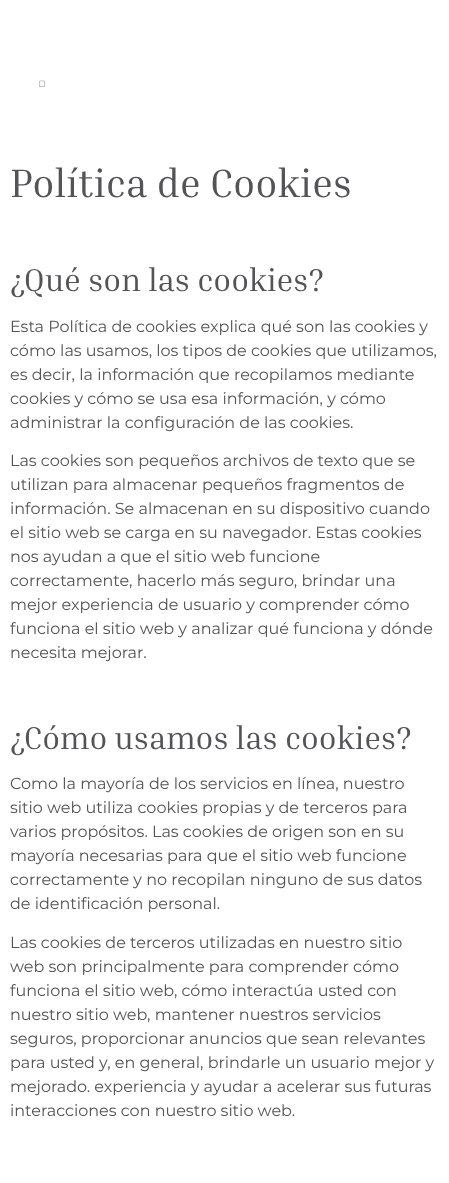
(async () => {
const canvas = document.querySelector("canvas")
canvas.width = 449
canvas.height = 1183
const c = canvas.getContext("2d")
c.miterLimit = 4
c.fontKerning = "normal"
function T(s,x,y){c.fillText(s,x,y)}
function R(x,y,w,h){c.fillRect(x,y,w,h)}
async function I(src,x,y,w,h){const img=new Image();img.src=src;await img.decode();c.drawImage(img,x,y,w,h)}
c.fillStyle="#fff"
R(0,0,449,1183)
await I("1.png",39,80,6,7)
c.font="40px Inria Serif"
c.fillStyle="#545457"
T("Política de Cookies",10,197)
c.font="32px Inria Serif"
T("¿Qué son las cookies?",10,291)
c.font="16px Montserrat"
T("Esta Política de cookies explica qué son las cookies y",10,332)
T("cómo las usamos, los tipos de cookies que utilizamos,",10,356)
T("es decir, la información que recopilamos mediante",10,380)
T("cookies y cómo se usa esa información, y cómo",10,404)
T("administrar la configuración de las cookies.",10,428)
T("Las cookies son pequeños archivos de texto que se",10,466)
T("utilizan para almacenar pequeños fragmentos de",10,490)
T("información. Se almacenan en su dispositivo cuando",10,514)
T("el sitio web se carga en su navegador. Estas cookies",10,538)
T("nos ayudan a que el sitio web funcione",10,562)
T("correctamente, hacerlo más seguro, brindar una",10,586)
T("mejor experiencia de usuario y comprender cómo",10,610)
T("funciona el sitio web y analizar qué funciona y dónde",10,634)
T("necesita mejorar.",10,658)
c.font="32px Inria Serif"
T("¿Cómo usamos las cookies?",10,749)
c.font="16px Montserrat"
T("Como la mayoría de los servicios en línea, nuestro",10,789)
T("sitio web utiliza cookies propias y de terceros para",10,813)
T("varios propósitos. Las cookies de origen son en su",10,837)
T("mayoría necesarias para que el sitio web funcione",10,861)
T("correctamente y no recopilan ninguno de sus datos",10,885)
T("de identificación personal.",10,909)
T("Las cookies de terceros utilizadas en nuestro sitio",10,948)
T("web son principalmente para comprender cómo",10,972)
T("funciona el sitio web, cómo interactúa usted con",10,996)
T("nuestro sitio web, mantener nuestros servicios",10,1020)
T("seguros, proporcionar anuncios que sean relevantes",10,1044)
T("para usted y, en general, brindarle un usuario mejor y",10,1068)
T("mejorado. experiencia y ayudar a acelerar sus futuras",10,1092)
T("interacciones con nuestro sitio web.",10,1116)
})()
